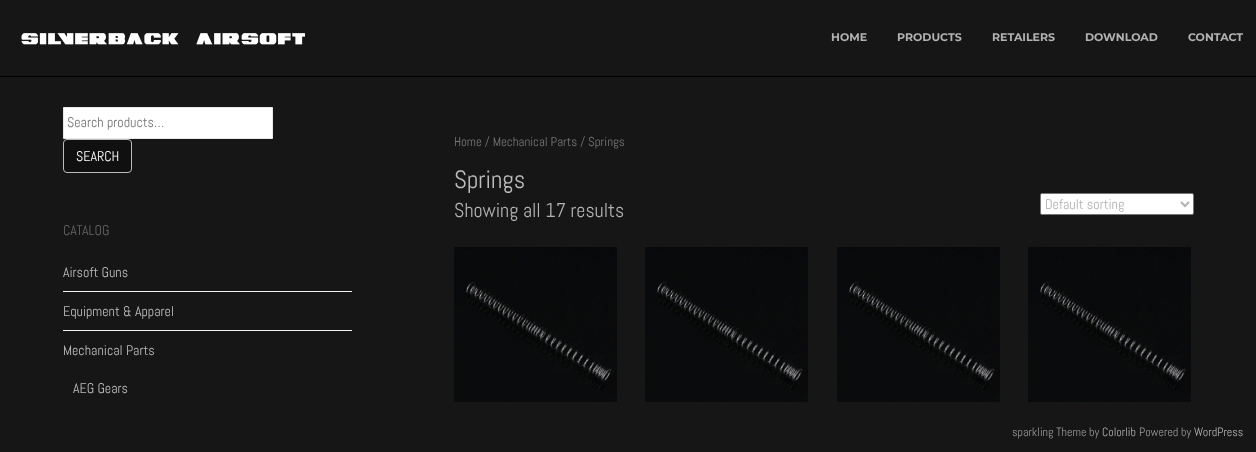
(async () => {
const canvas = document.querySelector("canvas")
canvas.width = 1256
canvas.height = 452
const c = canvas.getContext("2d")
c.miterLimit = 4
c.fontKerning = "normal"
function T(s,x,y){c.fillText(s,x,y)}
function R(x,y,w,h){c.fillRect(x,y,w,h)}
async function I(src,x,y,w,h){const img=new Image();img.src=src;await img.decode();c.drawImage(img,x,y,w,h)}
let path
c.fillStyle="#161616"
R(0,0,1256,452)
c.fillStyle="#000"
R(0,76,1256,1)
await I("1.png",21,33,284,12)
c.font="bold 11px Montserrat"
c.fillStyle="#b2b2b2"
T("HOME",831,41)
T("PRODUCTS",897,41)
T("RETAILERS",992,41)
T("DOWNLOAD",1085,41)
T("CONTACT",1188,41)
c.fillStyle="#fff"
c.beginPath()
c.rect(63.5,107.5,209,31)
c.fill()
c.strokeStyle="#e8e8e8"
c.stroke()
c.font="14px Abel"
c.fillStyle="#767676"
T("Search products…",67,127)
c.fillStyle="#101010"
c.beginPath()
c.roundRect(63.5,139.5,68,33,3.5)
c.fill()
c.strokeStyle="#bcbcbc"
c.stroke()
c.fillStyle="#fff"
T("SEARCH",76,161)
c.fillStyle="#636467"
T("CATALOG",63,235)
c.fillStyle="#f2f2f2"
R(63,291,289,1)
c.fillStyle="#bcbcbc"
T("Airsoft Guns",63,277)
c.fillStyle="#f2f2f2"
R(63,330,289,1)
c.fillStyle="#bcbcbc"
T("Equipment & Apparel",63,316)
T("Mechanical Parts",63,355)
T("AEG Gears",73,393)
c.font="12.9px Abel"
c.fillStyle="#767676"
T("Home / Mechanical Parts / Springs",454,146)
c.font="25px Abel"
c.fillStyle="#bcbcbc"
T("Springs",454,188)
c.font="20px Abel"
c.fillStyle="#b2b2b2"
T("Showing all 17 results",454,217)
c.fillStyle="#fff"
c.beginPath()
c.roundRect(1040.5,193.5,153,21,1.5)
c.fill()
c.strokeStyle="#767676"
c.stroke()
path = new Path2D("M1181 202l4 4l4-4")
c.strokeStyle="#b2b2b2"
c.lineWidth=2
c.stroke(path)
c.font="14px Abel"
c.fillStyle="#b2b2b2"
T("Default sorting",1045,209)
await I("2.png",454,247,163,155)
await I("2.png",645,247,163,155)
await I("2.png",837,247,163,155)
await I("2.png",1028,247,163,155)
c.font="12px Abel"
c.fillStyle="#999"
T("sparkling Theme by",1012,436)
c.fillStyle="#b2b2b2"
T("Colorlib",1102,436)
c.fillStyle="#999"
T("Powered by",1139,436)
c.fillStyle="#b2b2b2"
T("WordPress",1194,436)
})()
